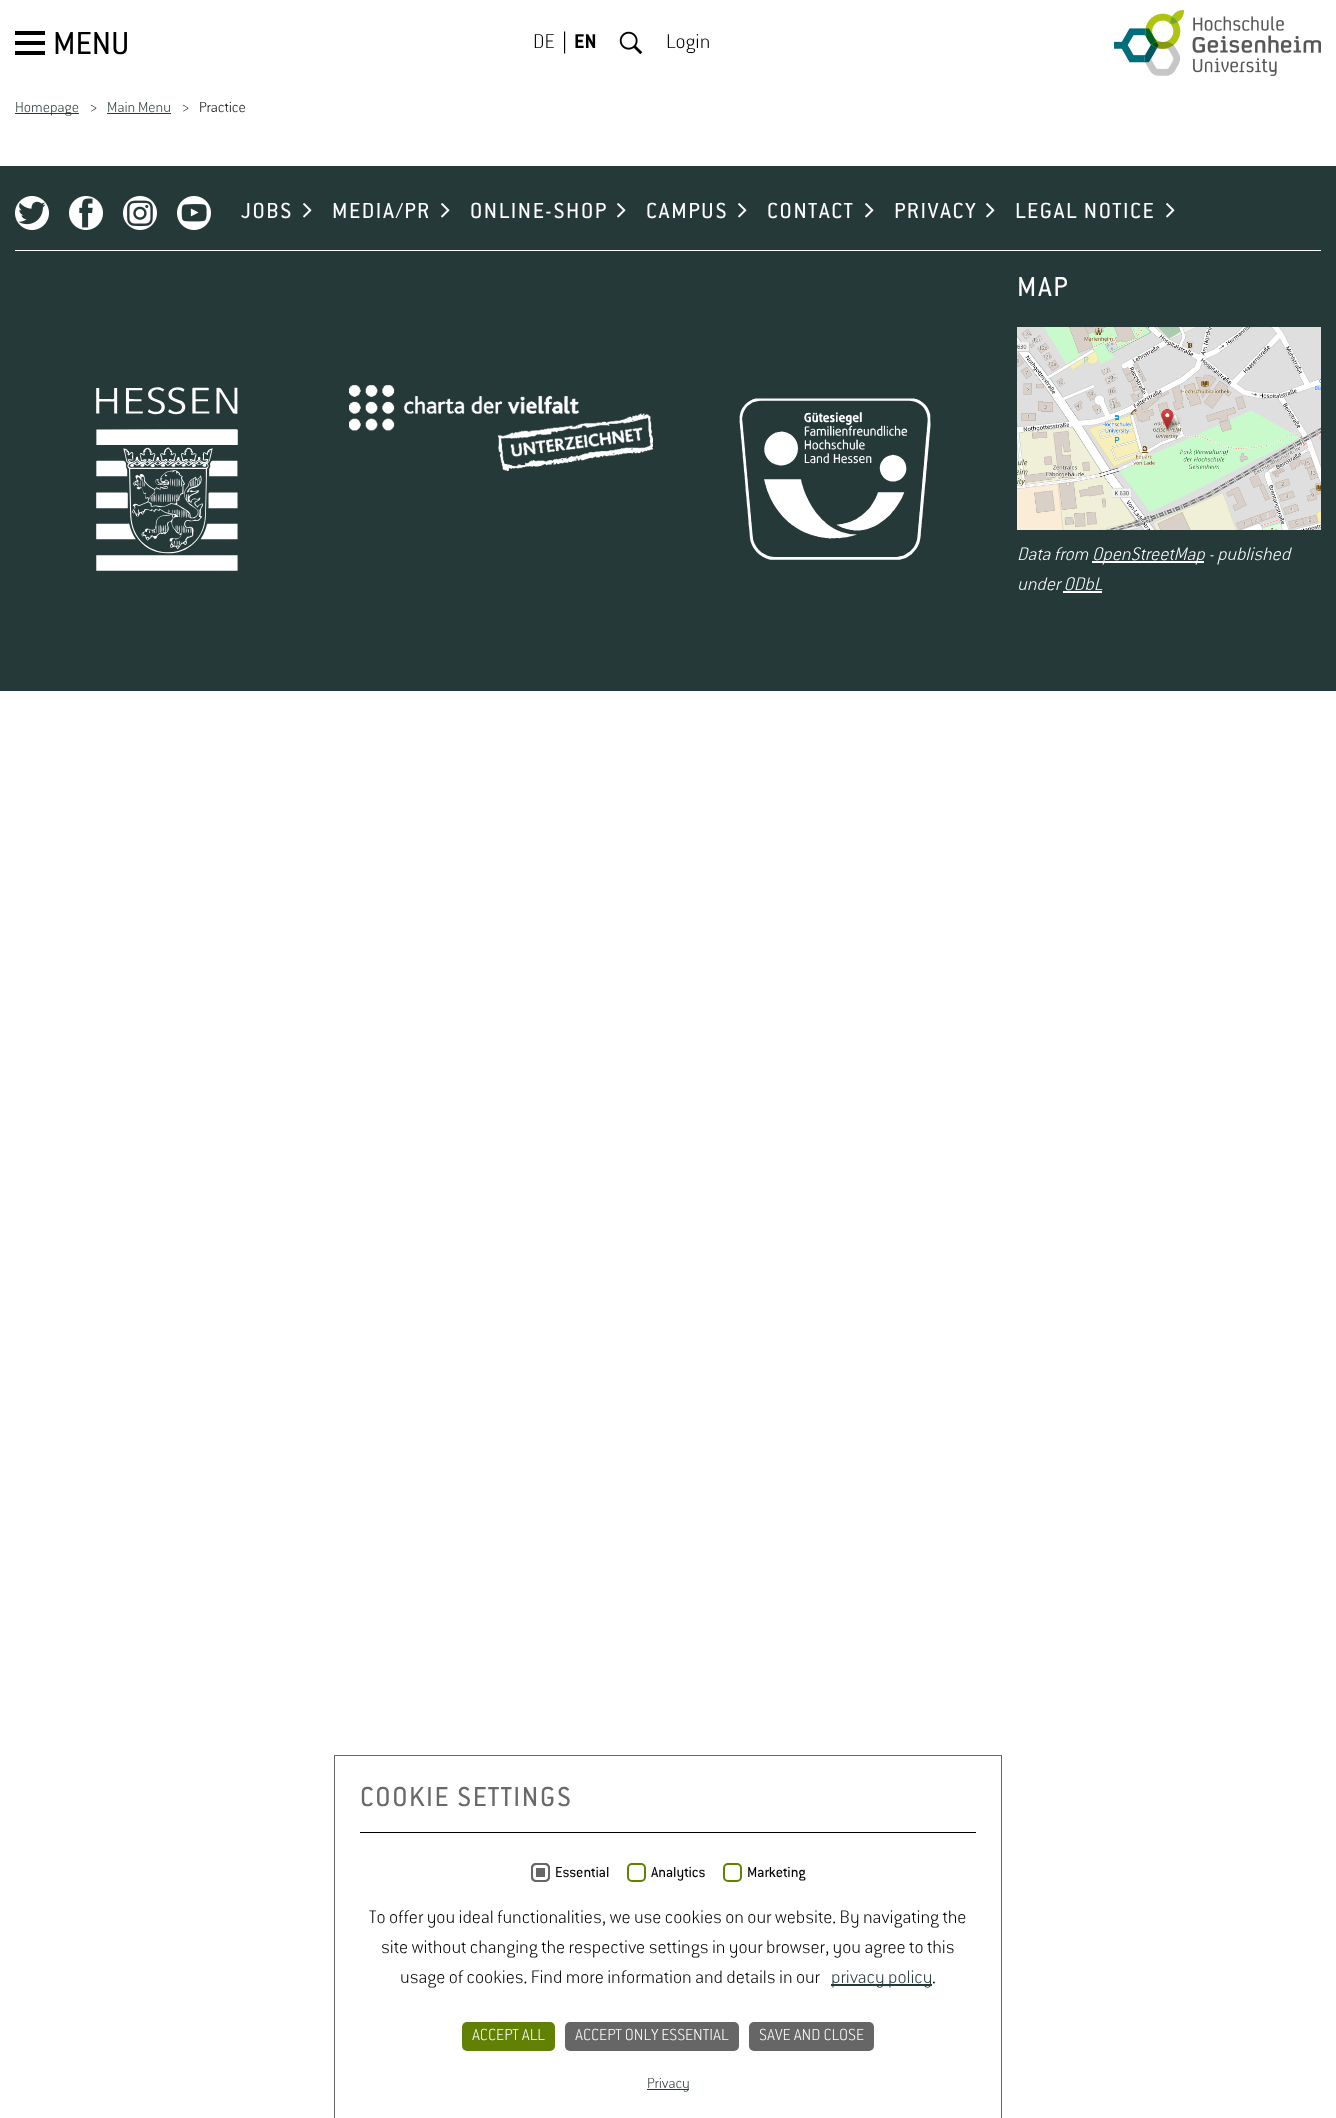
(async () => {
const canvas = document.querySelector("canvas")
canvas.width = 1336
canvas.height = 2118
const c = canvas.getContext("2d")
c.miterLimit = 4
c.fontKerning = "normal"
function T(s,x,y){c.fillText(s,x,y)}
function R(x,y,w,h){c.fillRect(x,y,w,h)}
function Q(x,y,w,h,r){c.beginPath();c.roundRect(x,y,w,h,r);c.fill()}
async function I(src,x,y,w,h){const img=new Image();img.src=src;await img.decode();c.drawImage(img,x,y,w,h)}
c.fillStyle="#fff"
R(0,0,1336,2118)
c.fillStyle="#000"
R(15,41,30,4)
R(15,31,30,4)
R(15,51,30,4)
c.font="35px 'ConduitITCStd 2'"
T("MENU",53,54)
c.font="22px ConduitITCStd"
T("DE",533,48)
c.font="22px 'ConduitITCStd 2'"
T("|",562,48)
c.font="22px 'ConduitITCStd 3'"
T("EN",574,48)
await I("1.png",619,31,24,24)
c.font="22px ConduitITCStd"
T("Login",666,48)
await I("2.png",1114,10,207,66)
c.fillStyle="#253939"
R(15,113,64,1)
c.font="16px ConduitITCStd"
T("Homepage",15,112)
c.fillStyle="#000"
T(">",89,112)
c.fillStyle="#253939"
T("Main Menu",107,112)
R(107,113,64,1)
c.fillStyle="#000"
T(">",181,112)
T("Practice",199,112)
c.fillStyle="#253939"
R(0,166,1336,525)
c.fillStyle="#fff"
R(15,250,1306,1)
await I("3.png",15,196,34,34)
await I("4.png",69,196,34,34)
await I("5.png",123,196,34,34)
await I("6.png",177,196,34,34)
c.letterSpacing="1.6px"
c.font="24px 'ConduitITCStd 2'"
T("JOBS",241,218)
await I("7.png",303,203,9,15)
T("MEDIA/PR",332,218)
await I("7.png",441,203,9,15)
T("ONLINE-SHOP",470,218)
await I("7.png",617,203,9,15)
T("CAMPUS",646,218)
await I("7.png",738,203,9,15)
T("CONTACT",767,218)
await I("7.png",865,203,9,15)
T("PRIVACY",894,218)
await I("7.png",986,203,9,15)
T("LEGAL NOTICE",1015,218)
await I("7.png",1166,203,9,15)
await I("8.png",96,387,142,184)
await I("9.png",349,385,304,86)
await I("10.png",739,398,192,162)
c.font="30px 'ConduitITCStd 2'"
T("MAP",1017,296)
await I("11.png",1017,327,304,203)
c.letterSpacing="0px"
c.font="italic 20px ConduitITCStd"
T("Data from",1017,560)
R(1092,561,112,2)
T("OpenStreetMap - published",1092,560)
T("under ODbL",1017,590)
R(1063,591,39,2)
c.fillStyle="#666"
R(334,1755,668,1)
R(1001,1755,1,363)
R(334,1755,1,363)
c.fillStyle="#000"
R(360,1832,616,1)
c.letterSpacing="1.6px"
c.font="30px 'ConduitITCStd 2'"
c.fillStyle="#696969"
T("COOKIE SETTINGS",360,1806)
c.fillStyle="#666"
Q(531,1863,19,19,5)
c.beginPath()
c.roundRect(534.5,1866.5,12,12,1.5)
c.strokeStyle="#fff"
c.lineWidth=3
c.stroke()
c.beginPath()
c.roundRect(532,1864,17,17,4)
c.strokeStyle="#666"
c.lineWidth=2
c.stroke()
c.letterSpacing="0px"
c.font="16px 'ConduitITCStd 2'"
c.fillStyle="#000"
T("Essential",555,1877)
c.beginPath()
c.roundRect(628,1864,17,17,4)
c.strokeStyle="#618105"
c.stroke()
T("Analytics",651,1877)
c.beginPath()
c.roundRect(724,1864,17,17,4)
c.stroke()
T("Marketing",747,1877)
c.font="20px ConduitITCStd"
T("To offer you ideal functionalities, we use cookies on our website. By navigating the",369,1923)
T("site without changing the respective settings in your browser, you agree to this",381,1953)
T("usage of cookies. Find more information and details in our",400,1983)
c.fillStyle="#253939"
R(831,1984,101,2)
T("privacy policy",831,1983)
c.fillStyle="#000"
T(".",932,1983)
c.fillStyle="#618105"
Q(462,2022,93,29,5)
c.font="17.5px ConduitITCStd"
c.fillStyle="#fff"
T("ACCEPT ALL",472,2040)
c.fillStyle="#666"
Q(565,2022,174,29,5)
c.fillStyle="#fff"
T("ACCEPT ONLY ESSENTIAL",575,2040)
c.fillStyle="#666"
Q(749,2022,125,29,5)
c.fillStyle="#fff"
T("SAVE AND CLOSE",759,2040)
c.fillStyle="#253939"
R(647,2089,42,1)
c.font="16px ConduitITCStd"
T("Privacy",647,2088)
})()
